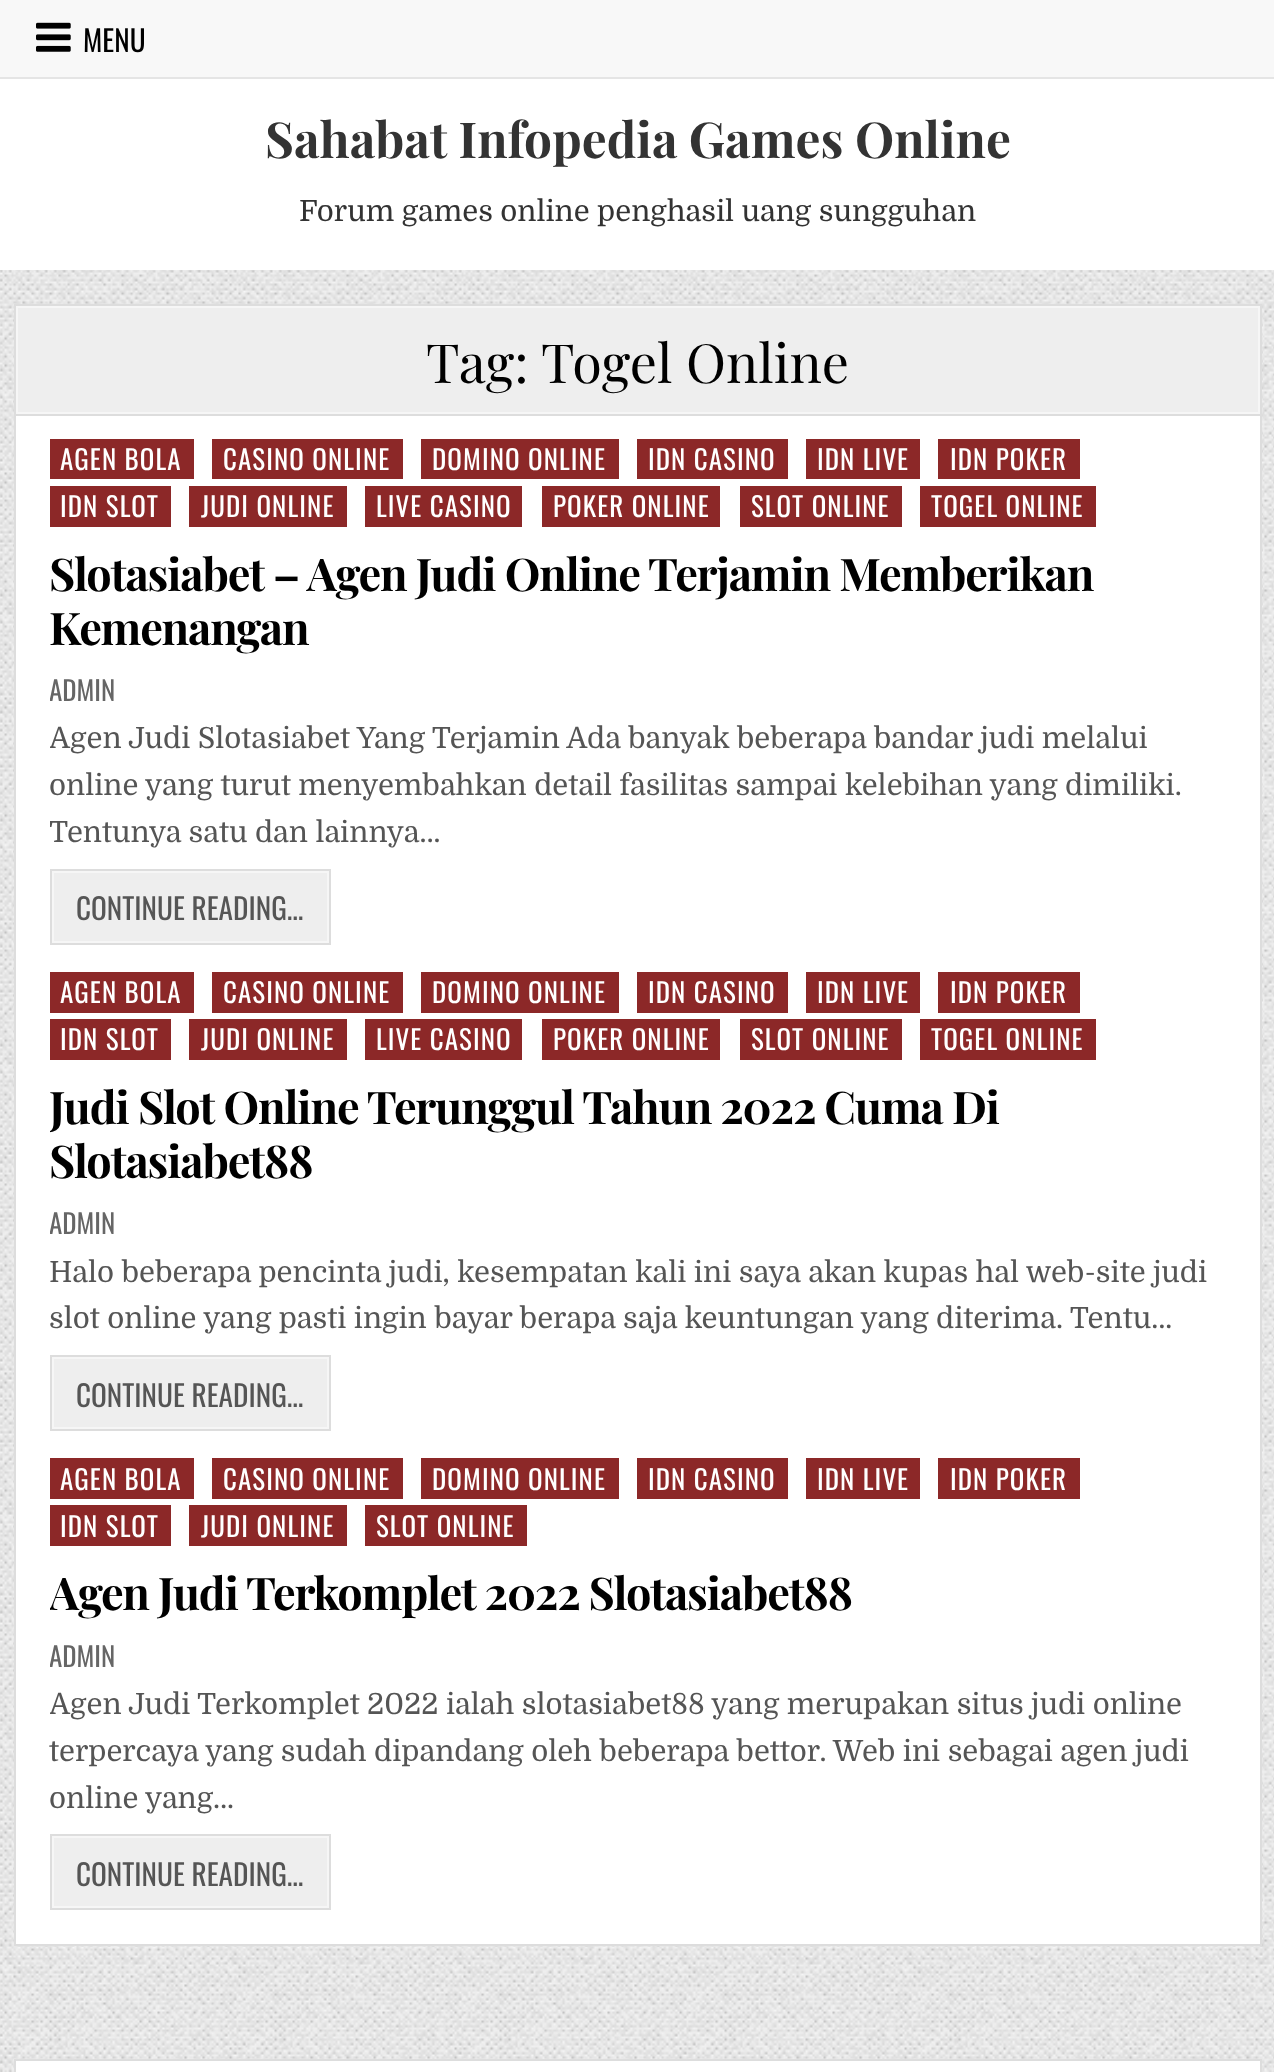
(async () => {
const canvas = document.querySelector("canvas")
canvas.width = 1274
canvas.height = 2072
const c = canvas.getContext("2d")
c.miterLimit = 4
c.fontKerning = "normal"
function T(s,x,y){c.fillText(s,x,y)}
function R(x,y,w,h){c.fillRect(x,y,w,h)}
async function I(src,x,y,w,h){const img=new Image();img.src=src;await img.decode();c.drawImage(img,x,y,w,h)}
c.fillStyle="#fff"
R(0,0,1274,2072)
await I("1.png",0,270,1274,1802)
c.fillStyle="#f8f8f8"
R(0,0,1274,77)
c.fillStyle="#e5e5e5"
R(0,77,1274,2)
await I("2.png",36,22,35,30)
c.font="29.25px Oswald"
c.fillStyle="#000"
T("MENU",83,52)
c.font="bold 49.5px Playfair Display"
c.fillStyle="#333"
T("Sahabat Infopedia Games Online",265,158)
c.font="29.25px Domine"
T("Forum games online penghasil uang sungguhan",299,221)
c.fillStyle="#fff"
R(16,416,1244,1528)
c.strokeStyle="#ddd"
c.lineWidth=2
c.strokeRect(15,305,1246,1640)
c.fillStyle="#ddd"
R(16,414,1244,2)
c.fillStyle="#eee"
c.beginPath()
c.rect(17,307,1242,106)
c.fill()
c.strokeStyle="#f6f6f6"
c.stroke()
c.font="54px Playfair Display"
c.fillStyle="#000"
T("Tag:",426,383)
T("Togel Online",541,383)
c.fillStyle="#8c2828"
R(50,439,144,40)
c.letterSpacing="1.1px"
c.font="27px Oswald"
c.fillStyle="#fff"
T("AGEN BOLA",60,470)
c.fillStyle="#8c2828"
R(212,439,191,40)
c.fillStyle="#fff"
T("CASINO ONLINE",223,470)
c.fillStyle="#8c2828"
R(421,439,198,40)
c.fillStyle="#fff"
T("DOMINO ONLINE",432,470)
c.fillStyle="#8c2828"
R(637,439,151,40)
c.fillStyle="#fff"
T("IDN CASINO",648,470)
c.fillStyle="#8c2828"
R(806,439,114,40)
c.fillStyle="#fff"
T("IDN LIVE",817,470)
c.fillStyle="#8c2828"
R(938,439,142,40)
c.fillStyle="#fff"
T("IDN POKER",950,470)
c.fillStyle="#8c2828"
R(50,486,121,41)
c.fillStyle="#fff"
T("IDN SLOT",60,517)
c.fillStyle="#8c2828"
R(189,486,158,41)
c.fillStyle="#fff"
T("JUDI ONLINE",201,517)
c.fillStyle="#8c2828"
R(365,486,157,41)
c.fillStyle="#fff"
T("LIVE CASINO",376,517)
c.fillStyle="#8c2828"
R(542,486,178,41)
c.fillStyle="#fff"
T("POKER ONLINE",553,517)
c.fillStyle="#8c2828"
R(740,486,162,41)
c.fillStyle="#fff"
T("SLOT ONLINE",751,517)
c.fillStyle="#8c2828"
R(920,486,176,41)
c.fillStyle="#fff"
T("TOGEL ONLINE",931,517)
c.letterSpacing="-1.12px"
c.font="bold 45px Playfair Display"
c.fillStyle="#000"
T("Slotasiabet – Agen Judi Online Terjamin Memberikan",49,591)
T("Kemenangan",49,645)
c.save()
c.beginPath()
c.rect(50,439,1176,506)
c.clip()
c.letterSpacing="0px"
c.font="27px Oswald"
c.fillStyle="#666"
T("ADMIN",49,701)
c.font="29.25px Domine"
c.fillStyle="#555"
T("Agen Judi Slotasiabet Yang Terjamin Ada banyak beberapa bandar judi melalui",49,748)
c.restore()
c.letterSpacing="0px"
c.font="29.25px Domine"
c.fillStyle="#555"
T("online yang turut menyembahkan detail fasilitas sampai kelebihan yang dimiliki.",49,795)
c.save()
c.beginPath()
c.rect(50,439,1176,506)
c.clip()
T("Tentunya satu dan lainnya…",49,842)
c.restore()
c.fillStyle="#eee"
R(54,873,273,68)
c.strokeStyle="#ddd"
c.strokeRect(51,870,279,74)
c.strokeStyle="#f6f6f6"
c.strokeRect(53,872,275,70)
c.font="29.25px Oswald"
c.fillStyle="#555"
T("CONTINUE READING...",76,920)
c.fillStyle="#8c2828"
R(50,972,144,41)
c.letterSpacing="1.1px"
c.font="27px Oswald"
c.fillStyle="#fff"
T("AGEN BOLA",60,1003)
c.fillStyle="#8c2828"
R(212,972,191,41)
c.fillStyle="#fff"
T("CASINO ONLINE",223,1003)
c.fillStyle="#8c2828"
R(421,972,198,41)
c.fillStyle="#fff"
T("DOMINO ONLINE",432,1003)
c.fillStyle="#8c2828"
R(637,972,151,41)
c.fillStyle="#fff"
T("IDN CASINO",648,1003)
c.fillStyle="#8c2828"
R(806,972,114,41)
c.fillStyle="#fff"
T("IDN LIVE",817,1003)
c.fillStyle="#8c2828"
R(938,972,142,41)
c.fillStyle="#fff"
T("IDN POKER",950,1003)
c.fillStyle="#8c2828"
R(50,1019,121,41)
c.fillStyle="#fff"
T("IDN SLOT",60,1050)
c.fillStyle="#8c2828"
R(189,1019,158,41)
c.fillStyle="#fff"
T("JUDI ONLINE",201,1050)
c.fillStyle="#8c2828"
R(365,1019,157,41)
c.fillStyle="#fff"
T("LIVE CASINO",376,1050)
c.fillStyle="#8c2828"
R(542,1019,178,41)
c.fillStyle="#fff"
T("POKER ONLINE",553,1050)
c.fillStyle="#8c2828"
R(740,1019,162,41)
c.fillStyle="#fff"
T("SLOT ONLINE",751,1050)
c.fillStyle="#8c2828"
R(920,1019,176,41)
c.fillStyle="#fff"
T("TOGEL ONLINE",931,1050)
c.save()
c.beginPath()
c.rect(50,972,1176,459)
c.clip()
c.letterSpacing="-1.12px"
c.font="bold 45px Playfair Display"
c.fillStyle="#000"
T("Judi Slot Online Terunggul Tahun 2022 Cuma Di",49,1124)
c.restore()
c.letterSpacing="-1.12px"
c.font="bold 45px Playfair Display"
c.fillStyle="#000"
T("Slotasiabet88",49,1178)
c.save()
c.beginPath()
c.rect(50,972,1176,459)
c.clip()
c.letterSpacing="0px"
c.font="27px Oswald"
c.fillStyle="#666"
T("ADMIN",49,1234)
c.restore()
c.letterSpacing="0px"
c.font="29.25px Domine"
c.fillStyle="#555"
T("Halo beberapa pencinta judi, kesempatan kali ini saya akan kupas hal web-site judi",49,1282)
T("slot online yang pasti ingin bayar berapa saja keuntungan yang diterima. Tentu…",49,1328)
c.fillStyle="#eee"
R(54,1359,273,68)
c.strokeStyle="#ddd"
c.strokeRect(51,1356,279,74)
c.strokeStyle="#f6f6f6"
c.strokeRect(53,1358,275,70)
c.font="29.25px Oswald"
c.fillStyle="#555"
T("CONTINUE READING...",76,1407)
c.fillStyle="#8c2828"
R(50,1458,144,41)
c.letterSpacing="1.1px"
c.font="27px Oswald"
c.fillStyle="#fff"
T("AGEN BOLA",60,1490)
c.fillStyle="#8c2828"
R(212,1458,191,41)
c.fillStyle="#fff"
T("CASINO ONLINE",223,1490)
c.fillStyle="#8c2828"
R(421,1458,198,41)
c.fillStyle="#fff"
T("DOMINO ONLINE",432,1490)
c.fillStyle="#8c2828"
R(637,1458,151,41)
c.fillStyle="#fff"
T("IDN CASINO",648,1490)
c.fillStyle="#8c2828"
R(806,1458,114,41)
c.fillStyle="#fff"
T("IDN LIVE",817,1490)
c.fillStyle="#8c2828"
R(938,1458,142,41)
c.fillStyle="#fff"
T("IDN POKER",950,1490)
c.fillStyle="#8c2828"
R(50,1505,121,41)
c.fillStyle="#fff"
T("IDN SLOT",60,1537)
c.fillStyle="#8c2828"
R(189,1505,158,41)
c.fillStyle="#fff"
T("JUDI ONLINE",201,1537)
c.fillStyle="#8c2828"
R(365,1505,162,41)
c.fillStyle="#fff"
T("SLOT ONLINE",376,1537)
c.save()
c.beginPath()
c.rect(50,1458,1176,452)
c.clip()
c.letterSpacing="-1.12px"
c.font="bold 45px Playfair Display"
c.fillStyle="#000"
T("Agen Judi Terkomplet 2022 Slotasiabet88",49,1610)
c.letterSpacing="0px"
c.font="27px Oswald"
c.fillStyle="#666"
T("ADMIN",49,1667)
c.font="29.25px Domine"
c.fillStyle="#555"
T("Agen Judi Terkomplet 2022 ialah slotasiabet88 yang merupakan situs judi online",49,1714)
c.restore()
c.letterSpacing="0px"
c.font="29.25px Domine"
c.fillStyle="#555"
T("terpercaya yang sudah dipandang oleh beberapa bettor. Web ini sebagai agen judi",49,1761)
T("online yang…",49,1808)
c.fillStyle="#eee"
R(54,1838,273,68)
c.strokeStyle="#ddd"
c.strokeRect(51,1835,279,74)
c.strokeStyle="#f6f6f6"
c.strokeRect(53,1837,275,70)
c.font="29.25px Oswald"
c.fillStyle="#555"
T("CONTINUE READING...",76,1886)
c.fillStyle="#fff"
c.beginPath()
c.rect(15,2060,1246,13)
c.fill()
c.strokeStyle="#ddd"
c.stroke()
})()
